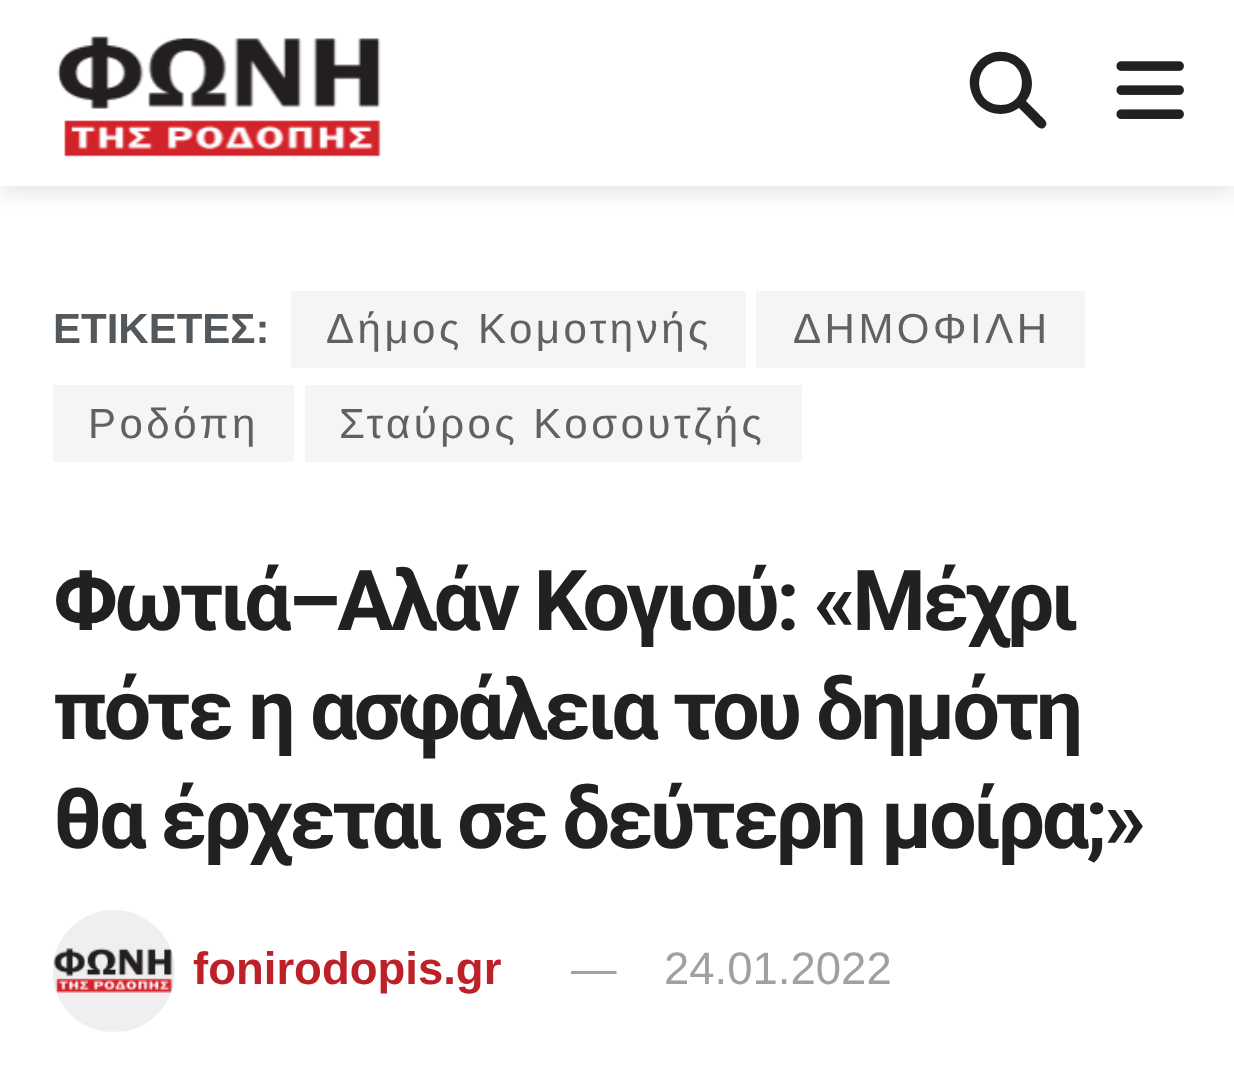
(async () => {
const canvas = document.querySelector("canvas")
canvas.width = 1234
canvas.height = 1066
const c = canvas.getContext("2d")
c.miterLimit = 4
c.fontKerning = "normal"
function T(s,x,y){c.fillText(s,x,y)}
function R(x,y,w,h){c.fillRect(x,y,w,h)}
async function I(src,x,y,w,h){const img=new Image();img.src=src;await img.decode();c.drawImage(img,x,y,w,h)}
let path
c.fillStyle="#fff"
R(0,0,1234,1066)
c.fillStyle="#0000001a"
c.filter="blur(10.5px)"
c.beginPath()
c.rect(0,7,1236,186)
c.fill()
c.filter="none"
c.fillStyle="#fff"
R(0,0,1234,186)
await I("1.png",57,36,324,121)
c.fillStyle="#212121"
path = new Path2D("M1032 83c0 7-2 13-6 18l13 13c2 3 11 8 6 13c-5 5-11-4-13-6l-13-13c-11 8-27 8-38-1c-6-5-10-13-11-21c-1-7 1-15 5-20c17-26 56-14 57 17zm-31 22c28 0 28-44 0-44c-29 0-29 44 0 44z")
c.fill(path)
await I("2.png",1116,61,68,58)
c.font="bold 42px Liberation Sans"
c.fillStyle="#53585c"
T("ΕΤΙΚΕΤΕΣ:",53,343)
c.fillStyle="#f5f5f5"
R(291,291,455,77)
c.letterSpacing="3.5px"
c.font="42px Liberation Sans"
c.fillStyle="#616161"
T("Δήμος Κομοτηνής",326,343)
c.fillStyle="#f5f5f5"
R(756,291,329,77)
c.fillStyle="#616161"
T("ΔΗΜΟΦΙΛΗ",793,343)
c.fillStyle="#f5f5f5"
R(53,385,241,77)
c.fillStyle="#616161"
T("Ροδόπη",88,438)
c.fillStyle="#f5f5f5"
R(305,385,497,77)
c.fillStyle="#616161"
T("Σταύρος Κοσουτζής",339,438)
c.letterSpacing="-3.5px"
c.font="bold 84px Roboto"
c.fillStyle="#212121"
T("Φωτιά–Αλάν Κογιού: «Μέχρι",53,630)
c.wordSpacing="0.5px"
T("πότε η ασφάλεια του δημότη",53,739)
c.wordSpacing="0px"
T("θα έρχεται σε δεύτερη μοίρα;»",53,848)
await I("3.png",53,910,122,122)
c.letterSpacing="0px"
c.font="bold 45.5px Liberation Sans"
c.fillStyle="#bd2027"
T("fonirodopis.gr",193,984)
c.font="45.5px Liberation Sans"
c.fillStyle="#a0a0a0"
T("—",571,984)
T("24.01.2022",664,984)
})()
